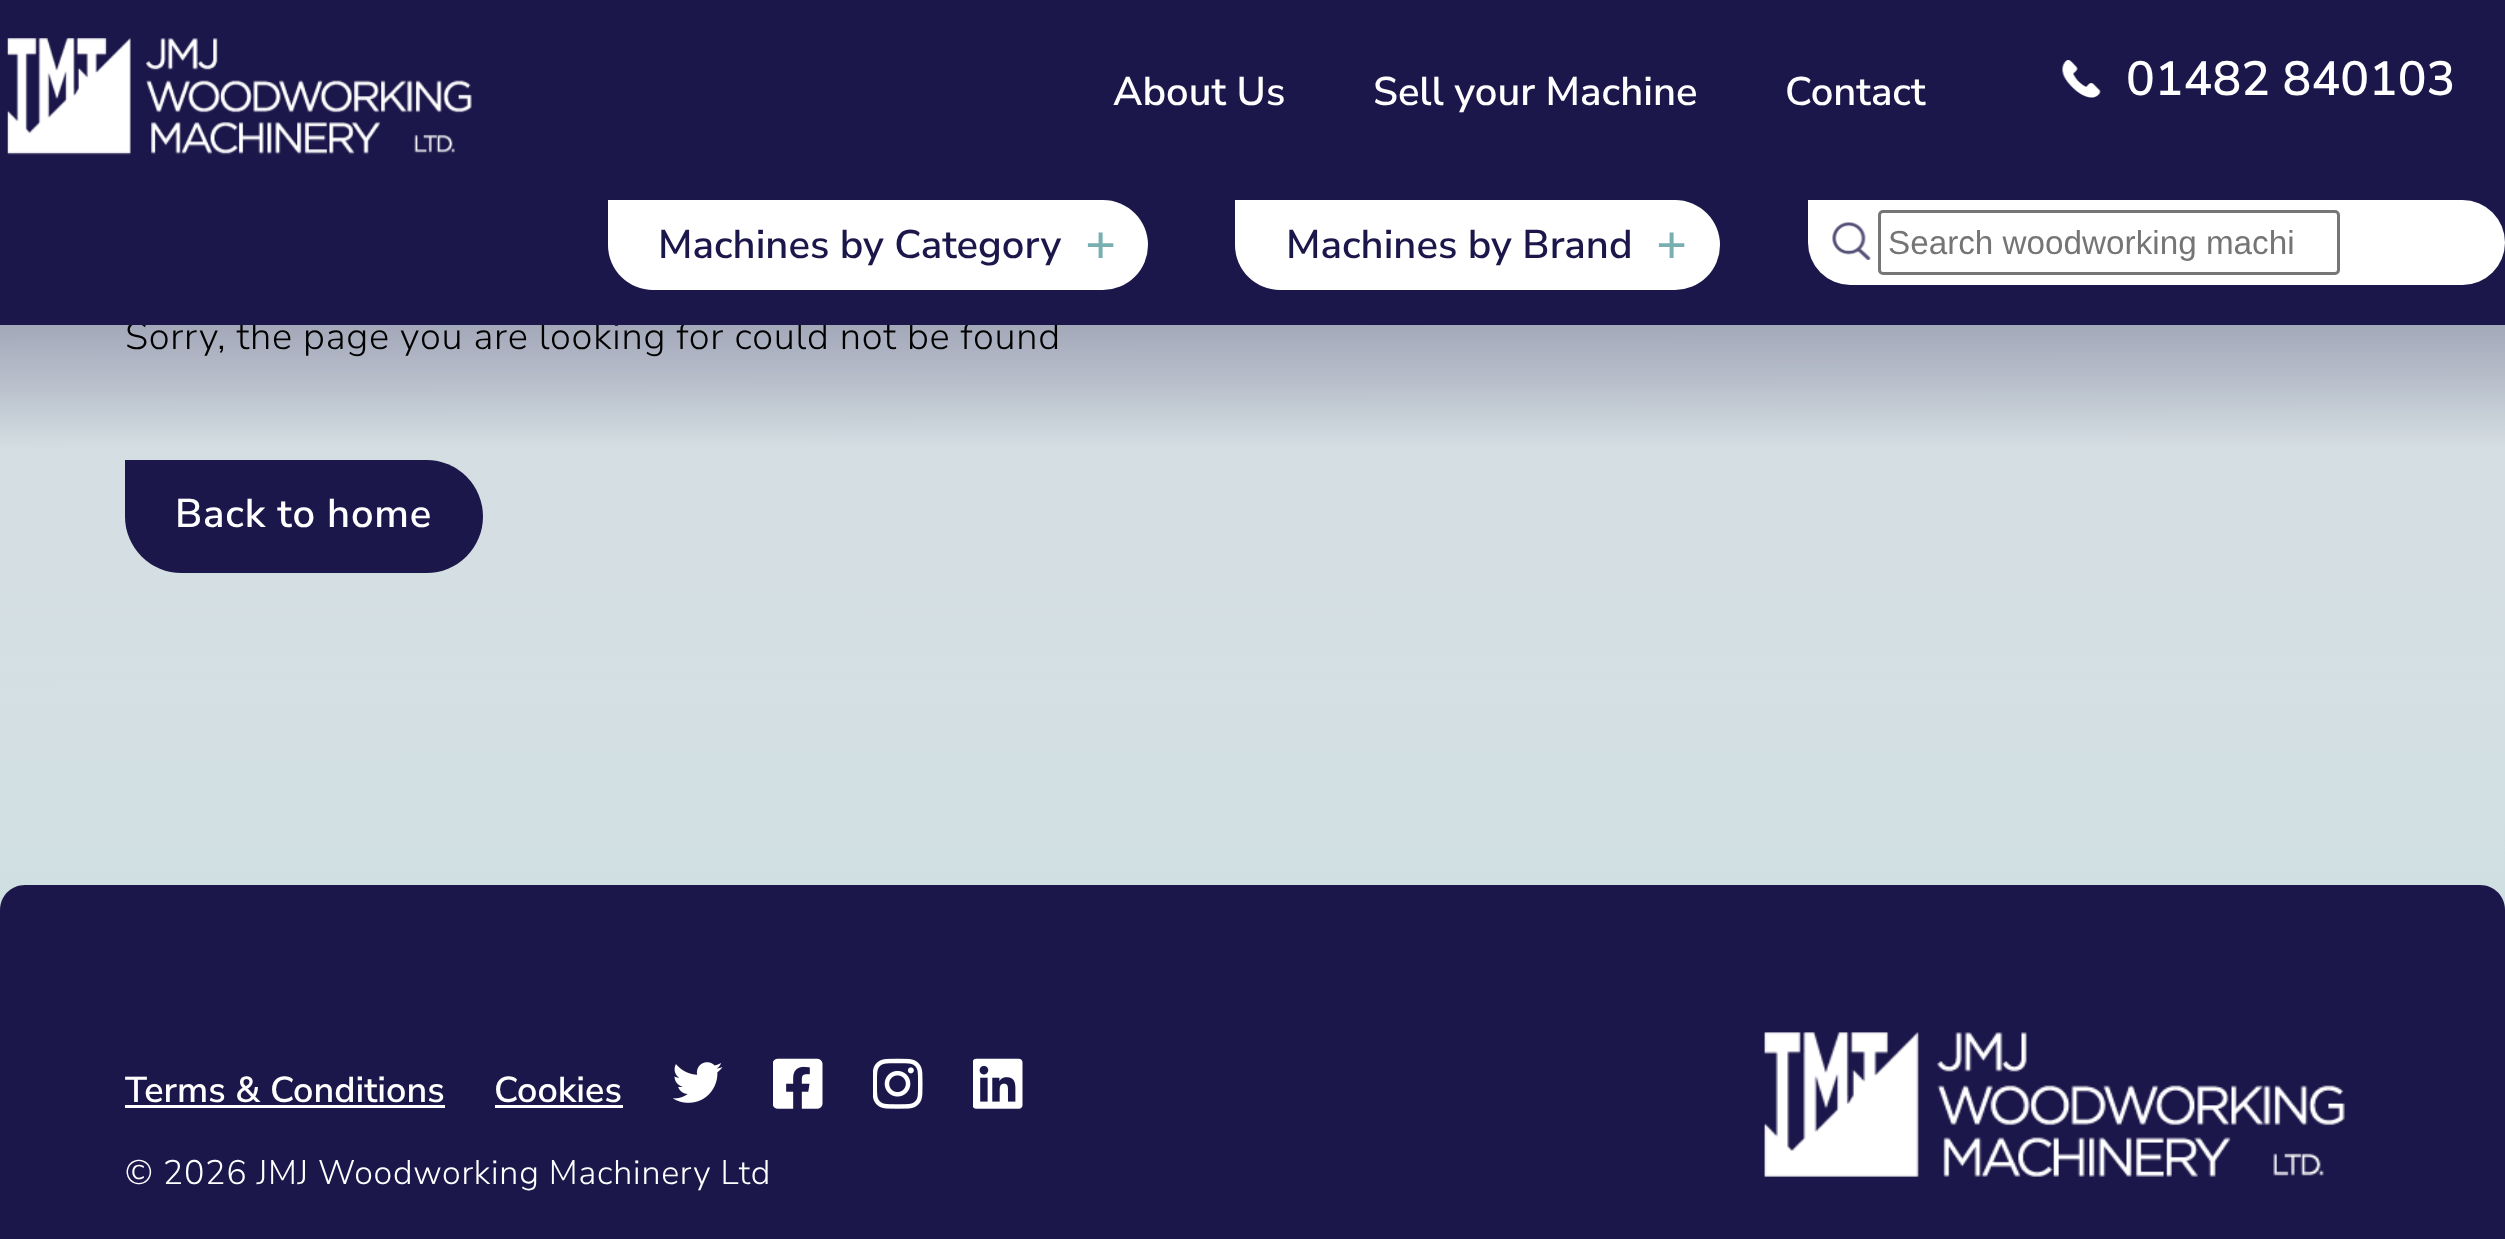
(async () => {
const canvas = document.querySelector("canvas")
canvas.width = 2505
canvas.height = 1239
const c = canvas.getContext("2d")
c.miterLimit = 4
c.fontKerning = "normal"
function T(s,x,y){c.fillText(s,x,y)}
function R(x,y,w,h){c.fillRect(x,y,w,h)}
async function I(src,x,y,w,h){const img=new Image();img.src=src;await img.decode();c.drawImage(img,x,y,w,h)}
let gradient, path
c.fillStyle="#fff"
R(0,0,2505,1239)
gradient = c.createLinearGradient(1252,-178,1253,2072)
gradient.addColorStop(0,"#fff")
gradient.addColorStop(.5,"#cae0e0")
gradient.addColorStop(1,"#fff")
c.fillStyle = gradient
R(0,325,2505,585)
gradient = c.createLinearGradient(1252,-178,1253,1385)
gradient.addColorStop(0,"#1c174a")
gradient.addColorStop(.18,"#1c174a99")
gradient.addColorStop(.4,"#d3dce1e6")
gradient.addColorStop(1,"#d3dce100")
c.fillStyle = gradient
R(0,325,2505,585)
c.letterSpacing="0.75px"
c.font="300 38px Nunito Sans"
c.fillStyle="#000"
T("Sorry, the page you are looking for could not be found",125,349)
c.fillStyle="#1c174a"
R(0,0,2505,325)
await I("1.png",7,38,465,117)
c.letterSpacing="0px"
c.font="600 40px Nunito Sans"
c.fillStyle="#fff"
T("About Us",1113,105)
T("Sell your Machine",1373,105)
T("Contact",1785,105)
await I("2.png",2062,60,39,38)
c.font="600 48px Nunito Sans"
T("01482 840103",2126,95)
c.beginPath()
c.roundRect(608,200,540,90,[0,45,45,45])
c.fill()
c.font="600 40px Nunito Sans"
c.fillStyle="#1c174a"
T("Machines by Category",658,258)
c.font="600 52px Nunito Sans"
c.fillStyle="#7aafb1"
T("+",1085,260)
c.fillStyle="#fff"
c.beginPath()
c.roundRect(1235,200,485,90,[0,45,45,45])
c.fill()
c.font="600 40px Nunito Sans"
c.fillStyle="#1c174a"
T("Machines by Brand",1286,258)
c.font="600 52px Nunito Sans"
c.fillStyle="#7aafb1"
T("+",1656,260)
c.fillStyle="#fff"
c.beginPath()
c.roundRect(1808,200,697,85,[0,42.5,42.5,42.5])
c.fill()
await I("3.png",1832,222,39,38)
c.beginPath()
c.roundRect(1879.5,211.5,459,62,3.5)
c.strokeStyle="#767676"
c.lineWidth=3
c.stroke()
c.font="33.25px Liberation Sans"
c.fillStyle="#757575"
T("Search woodworking machi",1888,254)
c.fillStyle="#1c174a"
c.beginPath()
c.roundRect(125,460,358,113,[0,56.5,56.5,56.5])
c.fill()
c.letterSpacing="0.75px"
c.font="600 40px Nunito Sans"
c.fillStyle="#fff"
T("Back to home",175,527)
c.fillStyle="#1c174a"
path = new Path2D("M25 885h2455c14 0 25 11 25 25v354h-2505v-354c0-14 11-25 25-25z")
c.fill(path)
c.letterSpacing="0px"
c.font="600 36px Nunito Sans"
c.fillStyle="#fff"
T("Terms & Conditions",125,1102)
R(125,1105,320,3)
T("Cookies",494,1102)
R(495,1105,128,3)
await I("4.png",673,1062,50,41)
await I("5.png",773,1058,50,51)
await I("6.png",873,1058,50,51)
await I("7.png",973,1058,50,51)
await I("8.png",1764,1032,581,145)
c.letterSpacing="0.75px"
c.font="300 34px Nunito Sans"
T("© 2026 JMJ Woodworking Machinery Ltd",125,1184)
})()
